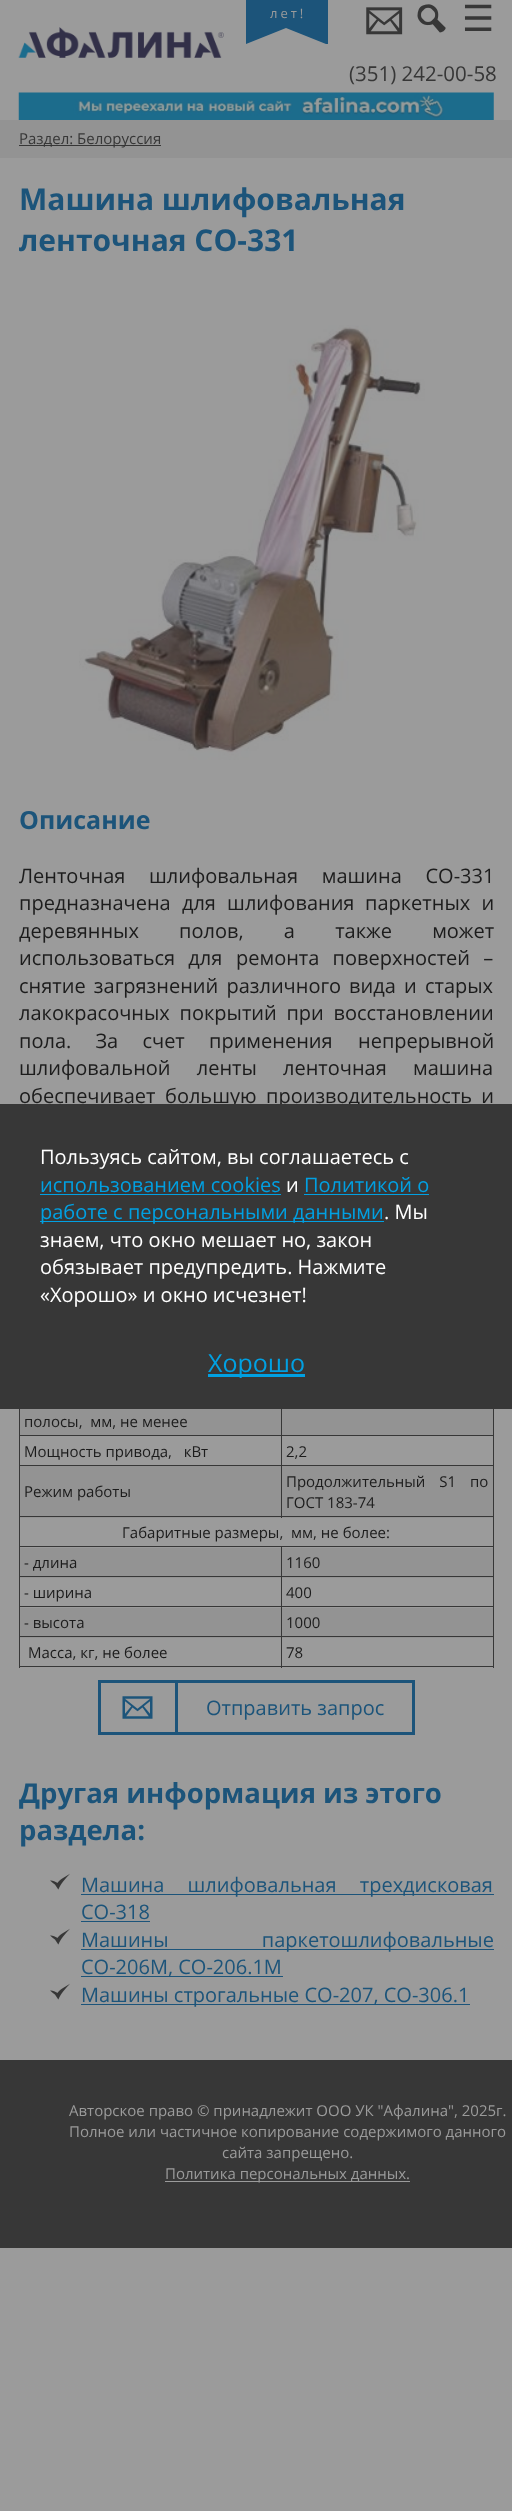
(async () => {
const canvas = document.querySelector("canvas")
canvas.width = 512
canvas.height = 2511
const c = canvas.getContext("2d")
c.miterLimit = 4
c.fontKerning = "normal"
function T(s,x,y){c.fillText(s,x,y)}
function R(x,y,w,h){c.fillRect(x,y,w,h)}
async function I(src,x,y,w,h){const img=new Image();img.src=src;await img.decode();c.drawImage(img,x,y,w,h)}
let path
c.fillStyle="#9b9b9b"
R(0,0,512,2511)
c.fillStyle="#1c547a"
R(246,0,82,44)
c.letterSpacing="3px"
c.font="13px Open Sans"
c.fillStyle="#9b9b9b"
T("лет!",270,18)
path = new Path2D("M326 44h-80l40-16z")
c.fill(path)
await I("1.png",366,7,37,28)
await I("2.png",417,4,29,29)
c.letterSpacing="0px"
c.font="36px DejaVu Sans"
c.fillStyle="#373737"
T("☰",462,31)
await I("3.png",18,27,206,31)
c.font="20.5px Open Sans"
T("(351) 242-00-58",349,81)
await I("4.png",18,92,476,28)
c.fillStyle="#939393"
R(0,120,512,38)
c.fillStyle="#373737"
R(19,145,142,1)
c.font="15px Open Sans"
T("Раздел: Белоруссия",19,144)
c.font="bold 30px Open Sans"
c.fillStyle="#1c547a"
T("Машина шлифовальная",19,210)
T("ленточная СО-331",19,251)
await I("5.png",79,325,346,435)
c.font="bold 25px Open Sans"
T("Описание",19,829)
c.wordSpacing="18.5px"
c.font="20px Open Sans"
c.fillStyle="#1c1c1c"
T("Ленточная шлифовальная машина СО-331",19,883)
c.wordSpacing="6px"
T("предназначена для шлифования",19,910)
T("паркетных и",365,910)
c.wordSpacing="35px"
T("деревянных полов, а также может",19,938)
c.wordSpacing="8px"
T("использоваться для",19,965)
T("ремонта поверхностей –",236,965)
c.wordSpacing="3px"
T("снятие загрязнений различного",19,993)
T("вида и старых",349,993)
c.wordSpacing="4.5px"
T("лакокрасочных покрытий при восстановлении",19,1020)
c.wordSpacing="19px"
T("пола. За счет",19,1048)
c.wordSpacing="0px"
T("применения",209,1048)
T("непрерывной",358,1048)
c.wordSpacing="21px"
T("шлифовальной ленты ленточная машина",19,1075)
c.wordSpacing="0px"
T("обеспечивает",19,1103)
T("большую",165,1103)
c.wordSpacing="4px"
T("производительность и",266,1103)
c.fillStyle="#373737"
R(493,1409,1,259)
R(19,1666,475,1)
R(19,1409,1,259)
c.fillStyle="#939393"
R(20,1409,473,26)
c.wordSpacing="0px"
c.font="15px Open Sans"
c.fillStyle="#1c1c1c"
T("полосы,  мм, не менее",24,1427)
c.fillStyle="#373737"
R(281,1435,213,1)
R(281,1465,213,1)
c.fillStyle="#939393"
R(20,1466,473,52)
c.fillStyle="#373737"
R(19,1516,475,1)
R(281,1465,1,53)
R(19,1465,264,1)
R(281,1435,1,31)
R(19,1435,264,1)
R(281,1409,1,27)
c.fillStyle="#1c1c1c"
T("Мощность привода,   кВт",24,1457)
T("2,2",286,1457)
T("Режим работы",24,1497)
c.wordSpacing="10px"
T("Продолжительный S1",286,1487)
c.wordSpacing="0px"
T("по",470,1487)
T("ГОСТ 183-74",286,1508)
T("Габаритные размеры,  мм, не более:",122,1538)
c.fillStyle="#939393"
R(20,1548,473,30)
c.fillStyle="#373737"
R(281,1546,213,1)
R(281,1576,213,1)
R(281,1606,213,1)
c.fillStyle="#939393"
R(20,1608,473,30)
c.fillStyle="#373737"
R(281,1636,213,1)
R(281,1636,1,32)
R(19,1636,264,1)
R(281,1606,1,32)
R(19,1606,264,1)
R(281,1576,1,32)
R(19,1576,264,1)
R(281,1546,1,32)
R(19,1546,264,1)
c.fillStyle="#1c1c1c"
T("- длина",24,1568)
T("1160",286,1568)
T("- ширина",24,1598)
T("400",286,1598)
T("- высота",24,1628)
T("1000",286,1628)
T("Масса, кг, не более",28,1658)
T("78",286,1658)
c.strokeStyle="#1c547a"
c.lineWidth=3
c.strokeRect(99.5,1681.5,314,52)
await I("6.png",122,1696,31,23)
c.fillStyle="#1c547a"
R(175,1683,3,50)
c.font="20px Open Sans"
T("Отправить запрос",206,1715)
c.font="bold 27.5px Open Sans"
T("Другая информация из этого",19,1803)
T("раздела:",19,1840)
await I("7.png",50,1873,20,17)
R(81,1894,413,1)
c.wordSpacing="18px"
c.font="20px Open Sans"
T("Машина шлифовальная трехдисковая",81,1892)
c.wordSpacing="0px"
T("СО-318",81,1919)
R(81,1921,69,1)
await I("7.png",50,1928,20,17)
R(81,1949,413,1)
c.wordSpacing="88px"
T("Машины паркетошлифовальные",81,1947)
R(81,1976,202,1)
c.wordSpacing="0px"
T("СО-206М, СО-206.1М",81,1974)
await I("7.png",50,1983,20,17)
R(81,2004,389,1)
T("Машины строгальные СО-207, СО-306.1",81,2002)
c.fillStyle="#373737"
R(0,1104,512,305)
c.fillStyle="#fff"
T("Пользуясь сайтом, вы соглашаетесь с",40,1164)
c.fillStyle="#01a0e2"
T("использованием cookies",40,1192)
R(40,1194,241,1)
c.fillStyle="#fff"
T("и",286,1192)
c.fillStyle="#01a0e2"
T("Политикой о",304,1192)
R(304,1194,125,1)
R(40,1221,344,1)
T("работе с персональными данными",40,1219)
c.fillStyle="#fff"
T(". Мы",384,1219)
T("знаем, что окно мешает но, закон",40,1247)
T("обязывает предупредить. Нажмите",40,1274)
T("«Хорошо» и окно исчезнет!",40,1302)
c.fillStyle="#01a0e2"
R(208,1374,97,3)
c.font="25px Open Sans"
T("Хорошо",208,1372)
c.fillStyle="#373737"
R(0,2060,512,188)
c.font="15px Open Sans"
c.fillStyle="#9b9b9b"
T("Авторское право © принадлежит ООО УК \"Афалина\", 2025г.",69,2116)
T("Полное или частичное копирование содержимого данного",69,2137)
T("сайта запрещено.",222,2158)
R(165,2181,245,1)
T("Политика персональных данных.",165,2179)
})()
